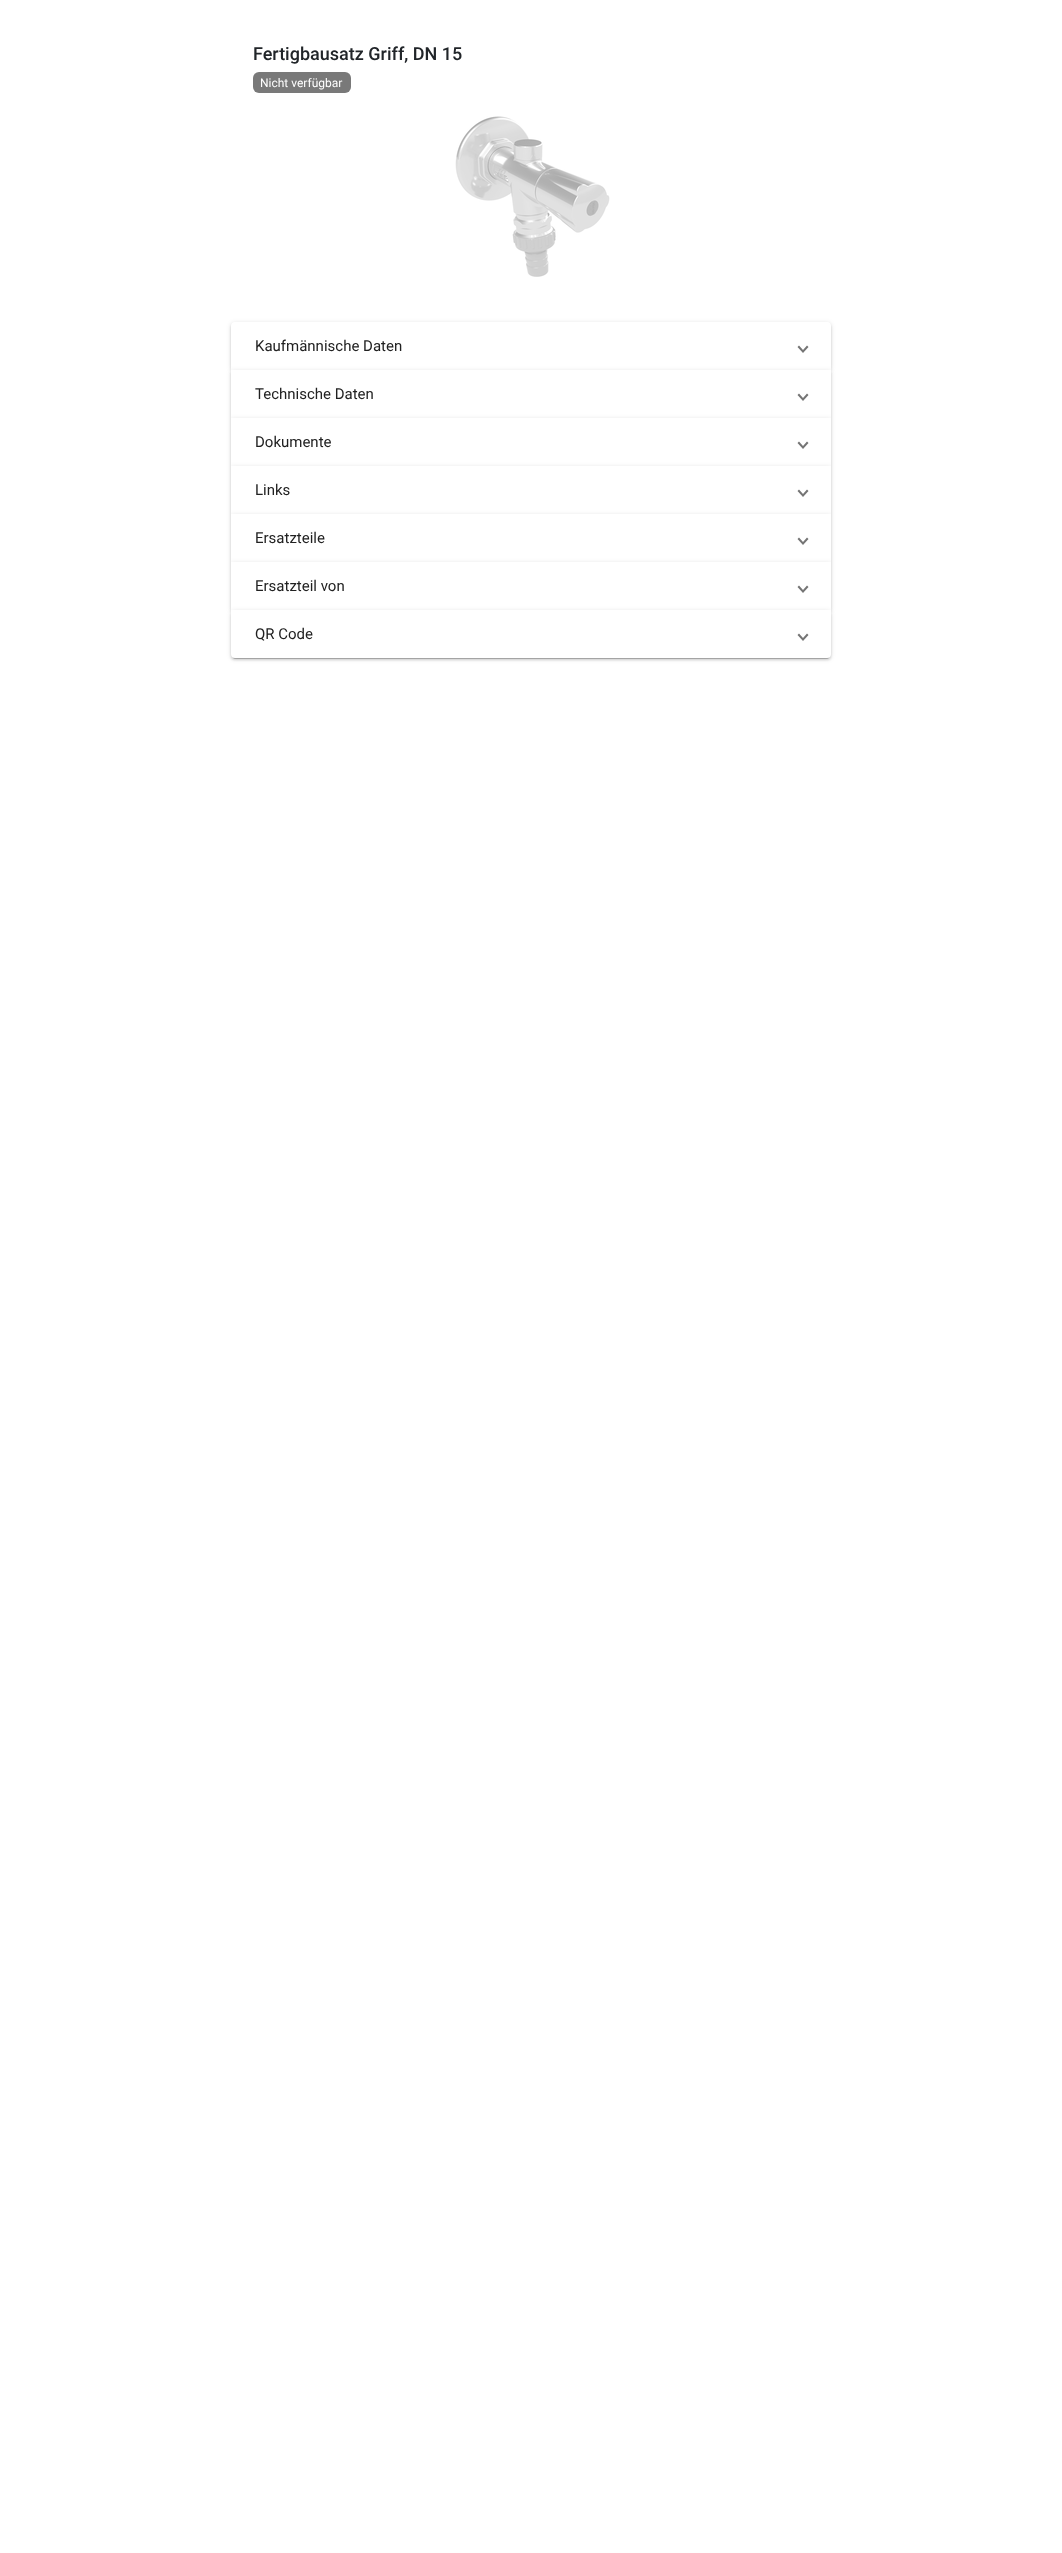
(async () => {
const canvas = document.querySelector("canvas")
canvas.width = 1062
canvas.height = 2553
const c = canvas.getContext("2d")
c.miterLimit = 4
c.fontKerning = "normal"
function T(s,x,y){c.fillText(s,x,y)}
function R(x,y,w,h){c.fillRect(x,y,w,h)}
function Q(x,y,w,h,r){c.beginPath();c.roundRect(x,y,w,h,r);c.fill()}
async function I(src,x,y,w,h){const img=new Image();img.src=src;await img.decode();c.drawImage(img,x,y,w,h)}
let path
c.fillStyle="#fff"
R(0,0,1062,2553)
c.font="500 18px Roboto"
c.fillStyle="#212529"
T("Fertigbausatz Griff, DN 15",253,60)
c.fillStyle="#797979"
Q(253,72,98,21,6)
c.font="12px Roboto"
c.fillStyle="#fff"
T("Nicht verfügbar",260,87)
await I("1.png",455,116,155,161)
c.fillStyle="#0000001f"
c.filter="blur(2.5px)"
c.beginPath()
c.roundRect(231,323,600,48,4)
c.fill()
c.filter="none"
c.fillStyle="#00000024"
c.filter="blur(1px)"
c.beginPath()
c.roundRect(231,324,600,48,4)
c.fill()
c.filter="none"
c.fillStyle="#fff"
c.beginPath()
c.roundRect(231,322,600,48,[4,4,0,0])
c.fill()
c.font="15px Roboto"
c.fillStyle="#212121"
T("Kaufmännische Daten",255,351)
c.fillStyle="#757575"
path = new Path2D("M808.5 347l-5.5 6v-3l4-4.5zm-5.5 6l-5.5-6l1.5-1.5l4 4.5z")
c.fill(path)
c.fillStyle="#0000001f"
c.filter="blur(2.5px)"
c.beginPath()
c.rect(231,371,600,48)
c.fill()
c.filter="none"
c.fillStyle="#00000024"
c.filter="blur(1px)"
c.beginPath()
c.rect(231,372,600,48)
c.fill()
c.filter="none"
c.fillStyle="#fff"
R(231,370,600,48)
c.fillStyle="#212121"
T("Technische Daten",255,399)
c.fillStyle="#757575"
path = new Path2D("M808.5 395l-5.5 6v-3l4-4.5zm-5.5 6l-5.5-6l1.5-1.5l4 4.5z")
c.fill(path)
c.fillStyle="#0000001f"
c.filter="blur(2.5px)"
c.beginPath()
c.rect(231,419,600,48)
c.fill()
c.filter="none"
c.fillStyle="#00000024"
c.filter="blur(1px)"
c.beginPath()
c.rect(231,420,600,48)
c.fill()
c.filter="none"
c.fillStyle="#fff"
R(231,418,600,48)
c.fillStyle="#212121"
T("Dokumente",255,447)
c.fillStyle="#757575"
path = new Path2D("M808.5 443l-5.5 6v-3l4-4.5zm-5.5 6l-5.5-6l1.5-1.5l4 4.5z")
c.fill(path)
c.fillStyle="#0000001f"
c.filter="blur(2.5px)"
c.beginPath()
c.rect(231,467,600,48)
c.fill()
c.filter="none"
c.fillStyle="#00000024"
c.filter="blur(1px)"
c.beginPath()
c.rect(231,468,600,48)
c.fill()
c.filter="none"
c.fillStyle="#fff"
R(231,466,600,48)
c.fillStyle="#212121"
T("Links",255,495)
c.fillStyle="#757575"
path = new Path2D("M808.5 491l-5.5 6v-3l4-4.5zm-5.5 6l-5.5-6l1.5-1.5l4 4.5z")
c.fill(path)
c.fillStyle="#0000001f"
c.filter="blur(2.5px)"
c.beginPath()
c.rect(231,515,600,48)
c.fill()
c.filter="none"
c.fillStyle="#00000024"
c.filter="blur(1px)"
c.beginPath()
c.rect(231,516,600,48)
c.fill()
c.filter="none"
c.fillStyle="#fff"
R(231,514,600,48)
c.fillStyle="#212121"
T("Ersatzteile",255,543)
c.fillStyle="#757575"
path = new Path2D("M808.5 539l-5.5 6v-3l4-4.5zm-5.5 6l-5.5-6l1.5-1.5l4 4.5z")
c.fill(path)
c.fillStyle="#0000001f"
c.filter="blur(2.5px)"
c.beginPath()
c.rect(231,563,600,48)
c.fill()
c.filter="none"
c.fillStyle="#00000024"
c.filter="blur(1px)"
c.beginPath()
c.rect(231,564,600,48)
c.fill()
c.filter="none"
c.fillStyle="#fff"
R(231,562,600,48)
c.fillStyle="#212121"
T("Ersatzteil von",255,591)
c.fillStyle="#757575"
path = new Path2D("M808.5 587l-5.5 6v-3l4-4.5zm-5.5 6l-5.5-6l1.5-1.5l4 4.5z")
c.fill(path)
c.fillStyle="#0000001f"
c.filter="blur(2.5px)"
c.beginPath()
c.roundRect(231,611,600,48,4)
c.fill()
c.filter="none"
c.fillStyle="#00000024"
c.filter="blur(1px)"
c.beginPath()
c.roundRect(231,612,600,48,4)
c.fill()
c.filter="none"
c.fillStyle="#00000033"
c.filter="blur(0.5px)"
c.beginPath()
c.roundRect(233,615,596,44,2)
c.fill()
c.filter="none"
c.fillStyle="#fff"
c.beginPath()
c.roundRect(231,610,600,48,[0,0,4,4])
c.fill()
c.fillStyle="#212121"
T("QR Code",255,639)
c.fillStyle="#757575"
path = new Path2D("M808.5 635l-5.5 6v-3l4-4.5zm-5.5 6l-5.5-6l1.5-1.5l4 4.5z")
c.fill(path)
})()
